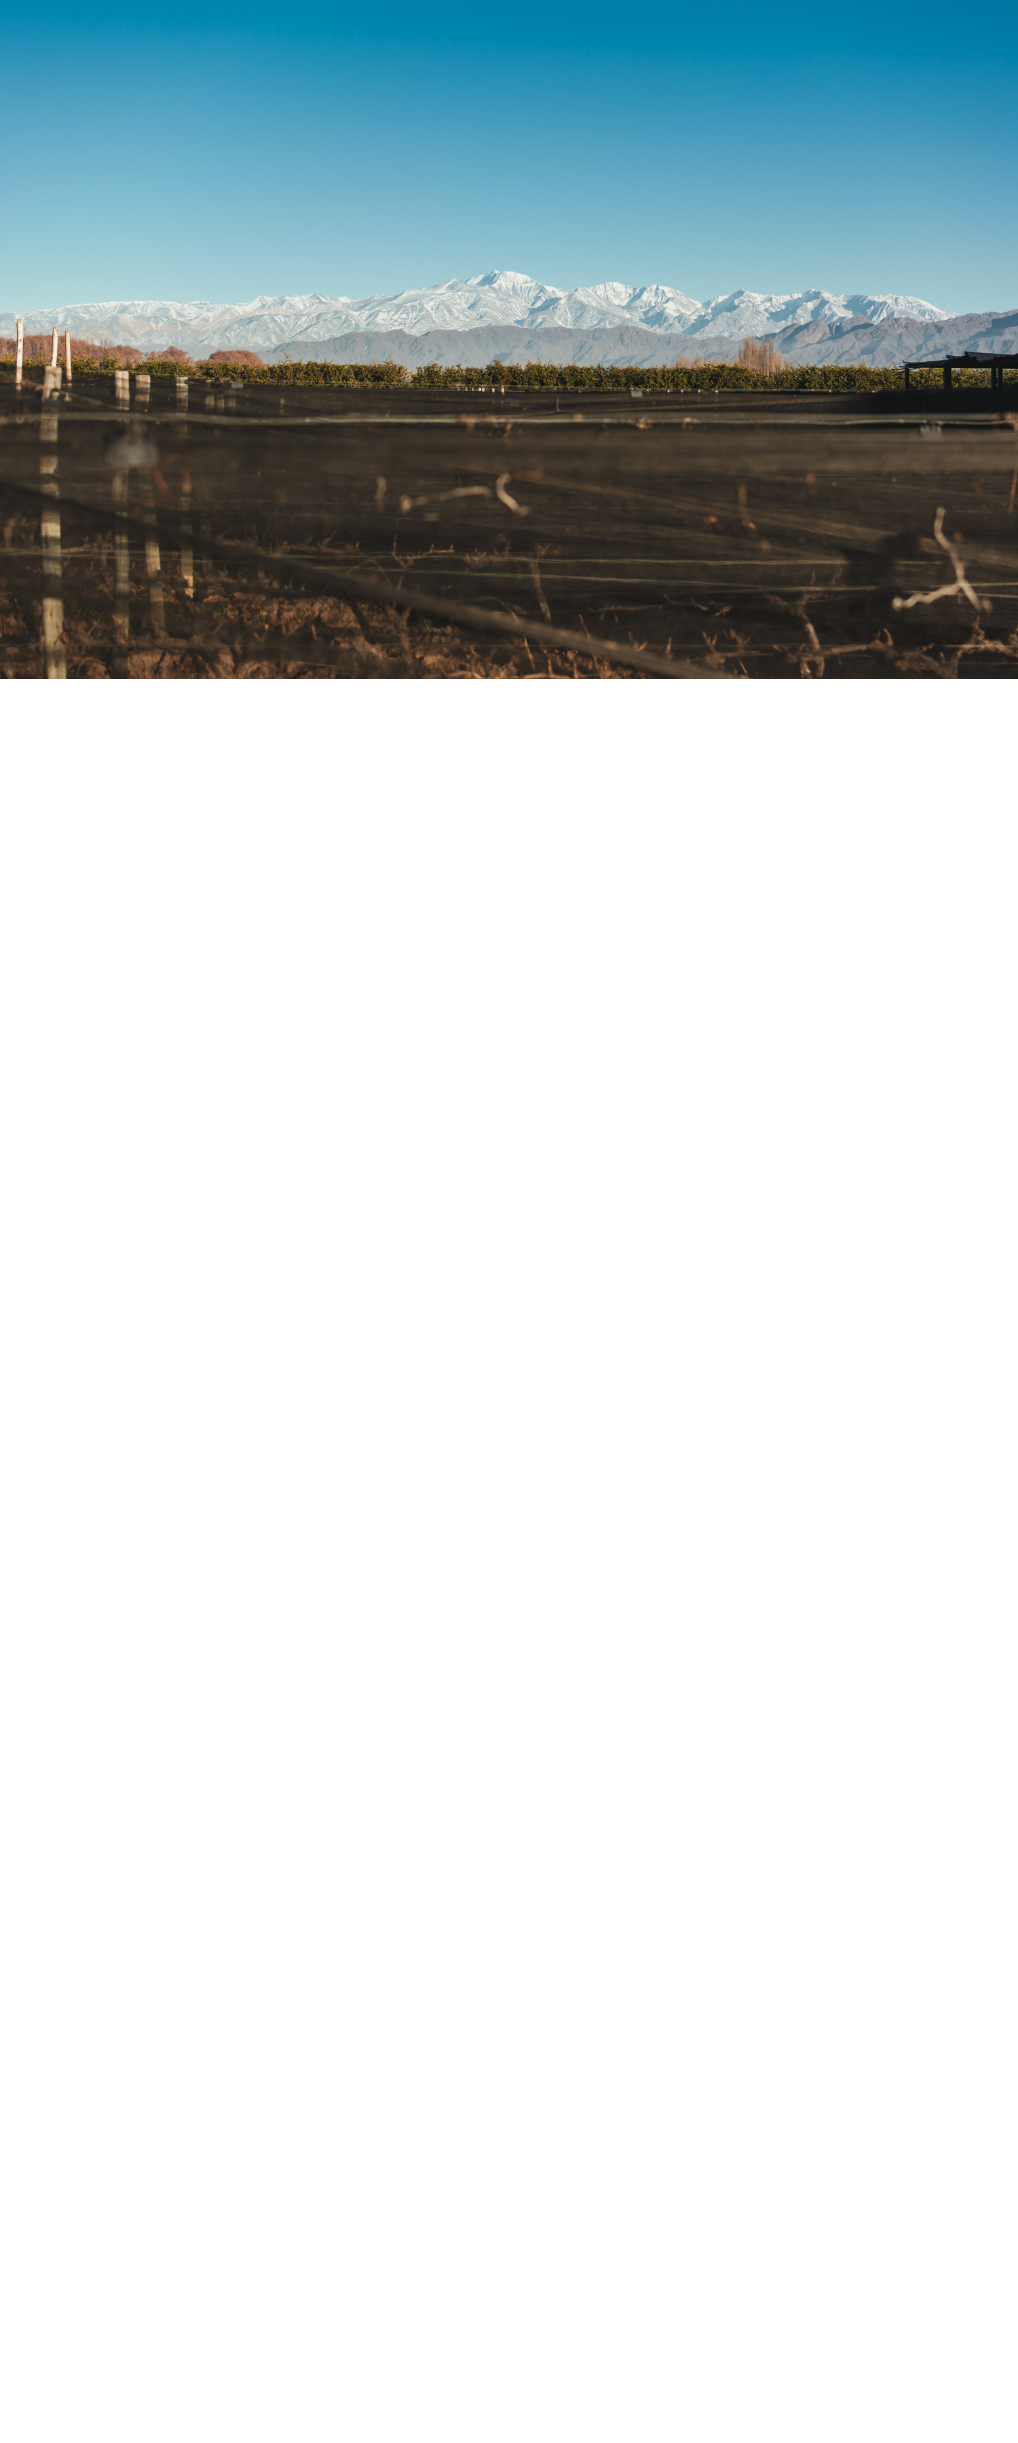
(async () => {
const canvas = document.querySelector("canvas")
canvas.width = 1018
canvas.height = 2443
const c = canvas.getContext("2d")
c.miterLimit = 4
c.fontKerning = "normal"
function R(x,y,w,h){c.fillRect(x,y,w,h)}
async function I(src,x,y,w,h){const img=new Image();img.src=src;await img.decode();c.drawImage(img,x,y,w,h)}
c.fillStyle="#fff"
R(0,0,1018,2443)
await I("1.png",0,0,1018,679)
})()
